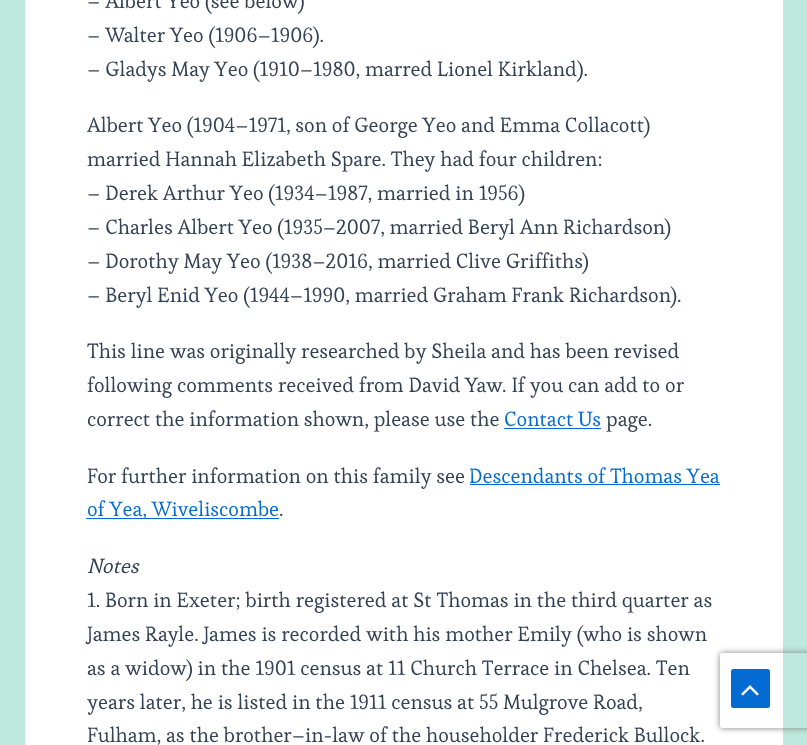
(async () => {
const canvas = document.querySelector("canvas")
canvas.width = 807
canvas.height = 745
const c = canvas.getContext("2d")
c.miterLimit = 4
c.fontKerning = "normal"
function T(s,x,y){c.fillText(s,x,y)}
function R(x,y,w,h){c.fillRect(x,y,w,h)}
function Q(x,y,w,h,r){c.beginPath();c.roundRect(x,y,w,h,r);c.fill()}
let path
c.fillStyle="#bee8dd"
R(0,0,807,745)
c.fillStyle="#fff"
R(25,0,758,745)
c.font="20.5px Esteban"
c.fillStyle="#334155"
T("– Albert Yeo (see below)",87,8)
T("– Walter Yeo (1906–1906).",87,42)
T("– Gladys May Yeo (1910–1980, marred Lionel Kirkland).",87,76)
T("Albert Yeo (1904–1971, son of George Yeo and Emma Collacott)",87,132)
T("married Hannah Elizabeth Spare. They had four children:",87,166)
T("– Derek Arthur Yeo (1934–1987, married in 1956)",87,200)
T("– Charles Albert Yeo (1935–2007, married Beryl Ann Richardson)",87,234)
T("– Dorothy May Yeo (1938–2016, married Clive Griffiths)",87,268)
T("– Beryl Enid Yeo (1944–1990, married Graham Frank Richardson).",87,302)
T("This line was originally researched by Sheila and has been revised",87,358)
T("following comments received from David Yaw. If you can add to or",87,392)
T("correct the information shown, please use the",87,426)
c.fillStyle="#046bd2"
T("Contact Us",504,426)
R(504,428,97,1)
c.fillStyle="#334155"
T("page.",606,426)
T("For further information on this family see",87,483)
c.fillStyle="#046bd2"
T("Descendants of Thomas Yea",469,483)
R(470,484,250,1)
R(86,518,193,1)
T("of Yea, Wiveliscombe",87,516)
c.fillStyle="#334155"
T(".",279,516)
c.font="italic 20.5px Esteban"
T("Notes",87,573)
c.font="20.5px Esteban"
T("1. Born in Exeter; birth registered at St Thomas in the third quarter as",87,607)
T("James Rayle. James is recorded with his mother Emily (who is shown",87,641)
T("as a widow) in the 1901 census at 11 Church Terrace in Chelsea. Ten",87,675)
T("years later, he is listed in the 1911 census at 55 Mulgrove Road,",87,709)
T("Fulham, as the brother–in-law of the householder Frederick Bullock.",87,742)
c.save()
path = new Path2D("M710 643h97v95h-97zm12.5 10h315c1.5 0 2.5 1 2.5 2.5v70c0 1.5-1 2.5-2.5 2.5h-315c-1.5 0-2.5-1-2.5-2.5v-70c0-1.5 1-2.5 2.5-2.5z")
c.clip(path,"evenodd")
c.fillStyle="#808080"
c.filter="blur(3px)"
c.beginPath()
c.roundRect(720,653,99,75,2.5)
c.fill()
c.filter="none"
c.restore()
c.fillStyle="#046bd2"
Q(731,669,39,39,2.5)
c.fillStyle="#fff"
path = new Path2D("M759 694l-9-9l-9 9l2 1.5l7-7l7 7z")
c.fill(path)
})()
